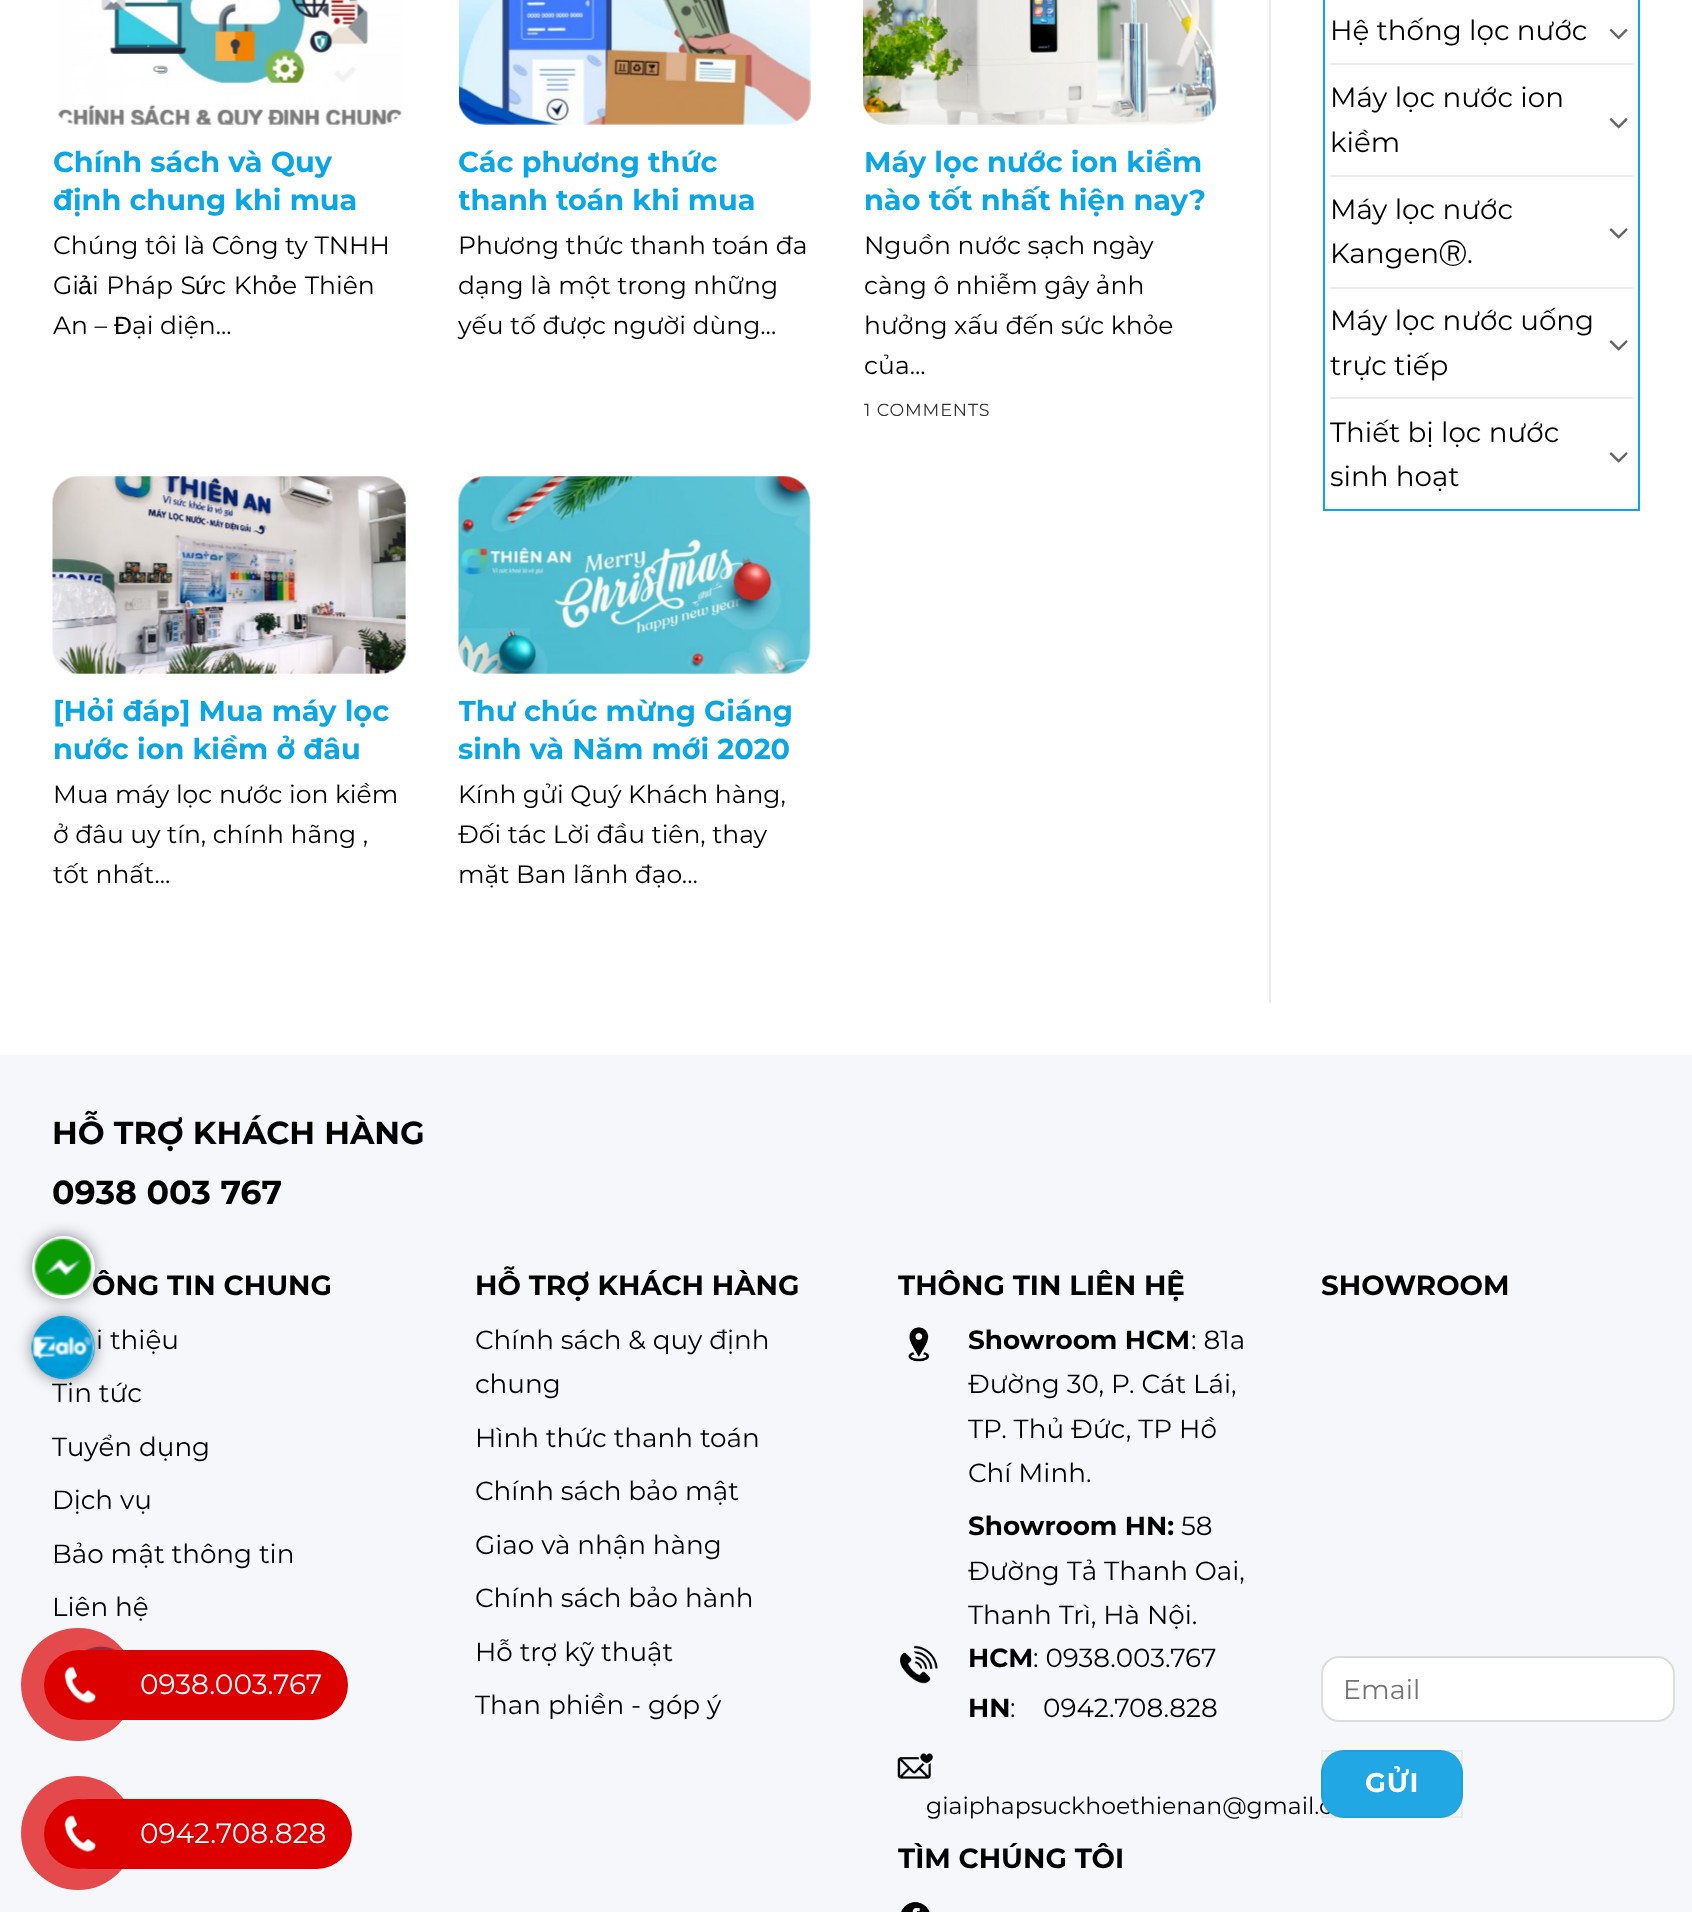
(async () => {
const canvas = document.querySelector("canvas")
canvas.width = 1692
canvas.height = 1912
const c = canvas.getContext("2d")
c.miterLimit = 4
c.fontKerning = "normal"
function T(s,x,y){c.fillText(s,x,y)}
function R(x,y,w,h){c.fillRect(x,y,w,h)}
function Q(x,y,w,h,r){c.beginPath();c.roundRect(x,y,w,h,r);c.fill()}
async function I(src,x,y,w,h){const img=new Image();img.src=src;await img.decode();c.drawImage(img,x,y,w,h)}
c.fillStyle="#fff"
R(0,0,1692,1912)
await I("1.png",58,0,344,125)
c.font="bold 28.75px Montserrat"
c.fillStyle="#0ba6e6"
T("Chính sách và Quy",53,172)
T("định chung khi mua",53,210)
c.font="25px Montserrat"
c.fillStyle="#000"
T("Chúng tôi là Công ty TNHH",53,254)
T("Gi",53,294)
c.font="25px Liberation Sans"
T("ả",78,294)
c.wordSpacing="1px"
c.font="25px Montserrat"
T("i Pháp S",92,294)
c.wordSpacing="0px"
c.font="25px Liberation Sans"
T("ứ",195,294)
c.wordSpacing="1px"
c.font="25px Montserrat"
T("c Kh",212,294)
c.wordSpacing="0px"
c.font="25px Liberation Sans"
T("ỏ",268,294)
c.wordSpacing="1px"
c.font="25px Montserrat"
T("e Thiên",282,294)
c.wordSpacing="0px"
T("An –",53,334)
c.font="25px Liberation Sans"
T("Đ",114,334)
c.font="25px Montserrat"
T("ại diện...",132,334)
await I("2.png",459,0,352,125)
c.font="bold 28.75px Montserrat"
c.fillStyle="#0ba6e6"
T("Các phương thức",458,172)
c.save()
c.beginPath()
c.rect(459,145,351,79)
c.clip()
T("thanh toán khi mua",458,210)
c.restore()
c.font="25px Montserrat"
c.fillStyle="#000"
T("Phương thức thanh toán đa",458,254)
T("dạng là một trong những",458,294)
T("yếu tố được người dùng...",458,334)
await I("3.png",863,0,354,125)
c.font="bold 28.75px Montserrat"
c.fillStyle="#0ba6e6"
T("Máy lọc nước ion kiềm",864,172)
T("nào tốt nhất hiện nay?",864,210)
c.font="25px Montserrat"
c.fillStyle="#000"
T("Nguồn nước sạch ngày",864,254)
T("càng ô nhiễm gây ảnh",864,294)
T("hưởng xấu đến sức khỏe",864,334)
T("của...",864,374)
c.letterSpacing="0.9px"
c.font="17.5px Montserrat"
c.fillStyle="#333"
T("1 COMMENTS",864,416)
await I("4.png",52,476,354,198)
c.letterSpacing="0px"
c.font="bold 28.75px Montserrat"
c.fillStyle="#0ba6e6"
T("[Hỏi đáp] Mua máy lọc",53,721)
T("nước ion kiềm ở đâu",53,759)
c.font="25px Montserrat"
c.fillStyle="#000"
T("Mua máy lọc nước ion kiềm",53,803)
T("ở đâu uy tín, chính hãng ,",53,843)
T("tốt nhất...",53,883)
await I("5.png",458,476,353,198)
c.save()
c.beginPath()
c.rect(459,693,351,79)
c.clip()
c.font="bold 28.75px Montserrat"
c.fillStyle="#0ba6e6"
T("Thư chúc mừng Giáng",458,721)
c.restore()
c.font="bold 28.75px Montserrat"
c.fillStyle="#0ba6e6"
T("sinh và Năm mới 2020",458,759)
c.font="25px Montserrat"
c.fillStyle="#000"
T("Kính gửi Quý Khách hàng,",458,803)
T("Đối tác Lời đầu tiên, thay",458,843)
T("mặt Ban lãnh đạo...",458,883)
c.fillStyle="#ececec"
R(1269,0,2,1003)
c.strokeStyle="#0ba6e6"
c.lineWidth=2
c.strokeRect(1324,-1,315,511)
c.font="27.75px Montserrat"
c.fillStyle="#000"
T("Hệ thống lọc nước",1330,40)
await I("6.png",1609,28,19,12)
c.fillStyle="#ececec"
R(1330,63,303,2)
c.fillStyle="#000"
T("Máy lọc nước ion",1330,107)
T("kiềm",1330,152)
await I("7.png",1609,118,19,11)
c.fillStyle="#ececec"
R(1330,175,303,2)
c.fillStyle="#000"
T("Máy lọc nước",1330,219)
T("Kangen",1330,263)
c.font="500 27.75px WenQuanYi Zen Hei"
T("Ⓡ",1439,263)
c.font="27.75px Montserrat"
T(".",1467,263)
await I("8.png",1609,228,19,11)
c.fillStyle="#ececec"
R(1330,287,303,2)
c.fillStyle="#000"
T("Máy lọc nước uống",1330,330)
T("trực tiếp",1330,375)
await I("8.png",1609,340,19,11)
c.fillStyle="#ececec"
R(1330,397,303,2)
c.fillStyle="#000"
T("Thiết bị lọc nước",1330,442)
T("sinh hoạt",1330,486)
await I("8.png",1609,452,19,11)
c.fillStyle="#f6f7fb"
R(0,1055,1692,857)
c.font="bold 31.9px Montserrat"
c.fillStyle="#000"
T("HỖ TRỢ KHÁCH HÀNG",52,1144)
c.font="bold 33.25px Montserrat"
T("0938 003 767",52,1204)
c.font="bold 27.75px Montserrat"
T("ÔNG TIN CHUNG",92,1295)
c.font="26.25px Montserrat"
T("i thiệu",96,1349)
T("Tin tức",52,1402)
T("Tuyển dụng",52,1456)
T("Dịch vụ",52,1509)
T("Bảo mật thông tin",52,1563)
T("Liên hệ",52,1616)
await I("9.png",60,1638,220,83)
c.font="bold 27.75px Montserrat"
T("HỖ TRỢ KHÁCH HÀNG",475,1295)
c.font="26.25px Montserrat"
T("Chính sách & quy định",475,1349)
T("chung",475,1393)
T("Hình thức thanh toán",475,1447)
T("Chính sách bảo mật",475,1500)
T("Giao và nhận hàng",475,1554)
T("Chính sách bảo hành",475,1607)
T("Hỗ trợ kỹ thuật",475,1661)
T("Than phiền - góp ý",475,1714)
c.font="bold 27.75px Montserrat"
T("THÔNG TIN LIÊN HỆ",898,1295)
await I("10.png",908,1327,21,35)
c.font="bold 26.25px Montserrat"
T("Showroom HCM",968,1349)
c.font="26.25px Montserrat"
T(": 81a",1191,1349)
T("Đường 30, P. Cát Lái,",968,1393)
T("TP. Thủ Đức, TP Hồ",968,1438)
T("Chí Minh.",968,1482)
c.font="bold 26.25px Montserrat"
T("Showroom HN:",968,1535)
c.font="26.25px Montserrat"
T("58",1181,1535)
T("Đường Tả Thanh Oai,",968,1580)
T("Thanh Trì, Hà Nội.",968,1624)
await I("11.png",900,1645,38,39)
c.font="bold 26.25px Montserrat"
T("HCM",968,1667)
c.font="26.25px Montserrat"
T(": 0938.003.767",1033,1667)
c.font="bold 26.25px Montserrat"
T("HN",968,1717)
c.font="26.25px Montserrat"
T(":    0942.708.828",1010,1717)
await I("12.png",897,1753,36,26)
c.font="23.6px Montserrat"
T("giaiphapsuckhoethienan@gmail.c",926,1814)
c.font="bold 27.75px Montserrat"
T("TÌM CHÚNG TÔI",898,1868)
await I("13.png",901,1902,29,10)
T("SHOWROOM",1321,1295)
c.fillStyle="#fff"
c.beginPath()
c.roundRect(1322,1657,352,64,17)
c.fill()
c.strokeStyle="#ddd"
c.stroke()
c.font="27px Montserrat"
c.fillStyle="#757575"
T("Email",1343,1699)
c.fillStyle="#21a7e4"
Q(1321,1750,142,68,23)
c.strokeStyle="#0000000d"
c.strokeRect(1322,1751,140,66)
c.letterSpacing="1px"
c.font="bold 27px Montserrat"
c.fillStyle="#fff"
T("GỬI",1365,1792)
c.fillStyle="#000000b3"
c.filter="blur(9px)"
c.beginPath()
c.roundRect(35,1239,56,56,28)
c.fill()
c.filter="none"
c.fillStyle="#fff"
c.beginPath()
c.arc(63.5,1267.5,31.5,0,7)
c.fill()
await I("14.png",34,1238,58,58)
c.fillStyle="#000000b3"
c.filter="blur(9px)"
c.beginPath()
c.roundRect(35,1320,56,56,28)
c.fill()
c.filter="none"
c.fillStyle="#009edb"
c.beginPath()
c.arc(63.5,1347.5,31.5,0,7)
c.fill()
await I("15.png",31,1315,64,65)
c.fillStyle="#d00"
Q(53,1650,295,70,35)
c.fillStyle="#dd0000b3"
Q(21,1628,114,113,56.5)
c.fillStyle="#d00"
c.beginPath()
c.arc(79,1685,35,0,7)
c.fill()
await I("16.png",64,1666,32,38)
c.letterSpacing="0px"
c.font="28px Montserrat"
c.fillStyle="#fff"
T("0938.003.767",140,1694)
c.fillStyle="#d00"
Q(53,1799,299,70,35)
c.fillStyle="#dd0000b3"
c.beginPath()
c.arc(78,1833,57,0,7)
c.fill()
c.fillStyle="#d00"
c.beginPath()
c.arc(79,1834,35,0,7)
c.fill()
await I("17.png",64,1815,32,38)
c.fillStyle="#fff"
T("0942.708.828",140,1843)
})()
